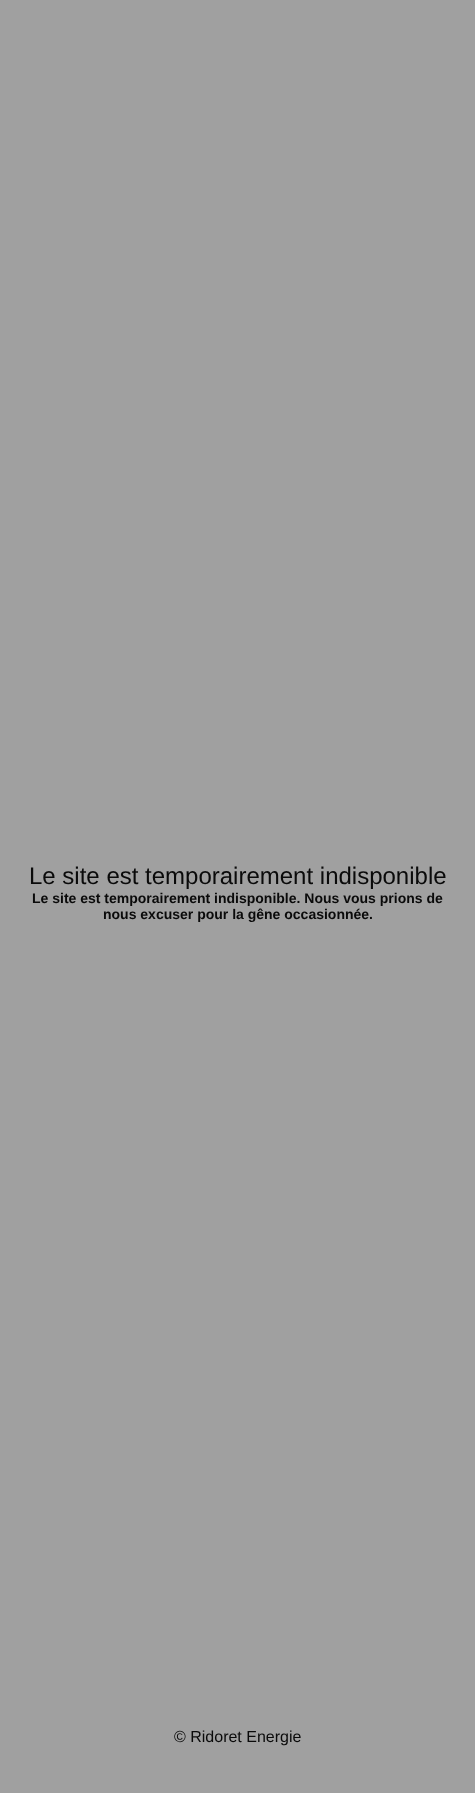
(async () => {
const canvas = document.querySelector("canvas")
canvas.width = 475
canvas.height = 1793
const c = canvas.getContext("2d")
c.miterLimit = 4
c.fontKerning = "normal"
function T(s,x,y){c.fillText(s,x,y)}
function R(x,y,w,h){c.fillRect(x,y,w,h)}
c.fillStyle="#a0a0a0"
R(0,0,475,1793)
c.font="24px Liberation Sans"
c.fillStyle="#0a0a0a"
T("Le site est temporairement indisponible",29,884)
c.font="bold 14px Liberation Sans"
T("Le site est temporairement indisponible. Nous vous prions de",32,903)
T("nous excuser pour la gêne occasionnée.",103,919)
c.font="16px Liberation Sans"
T("© Ridoret Energie",174,1742)
})()
